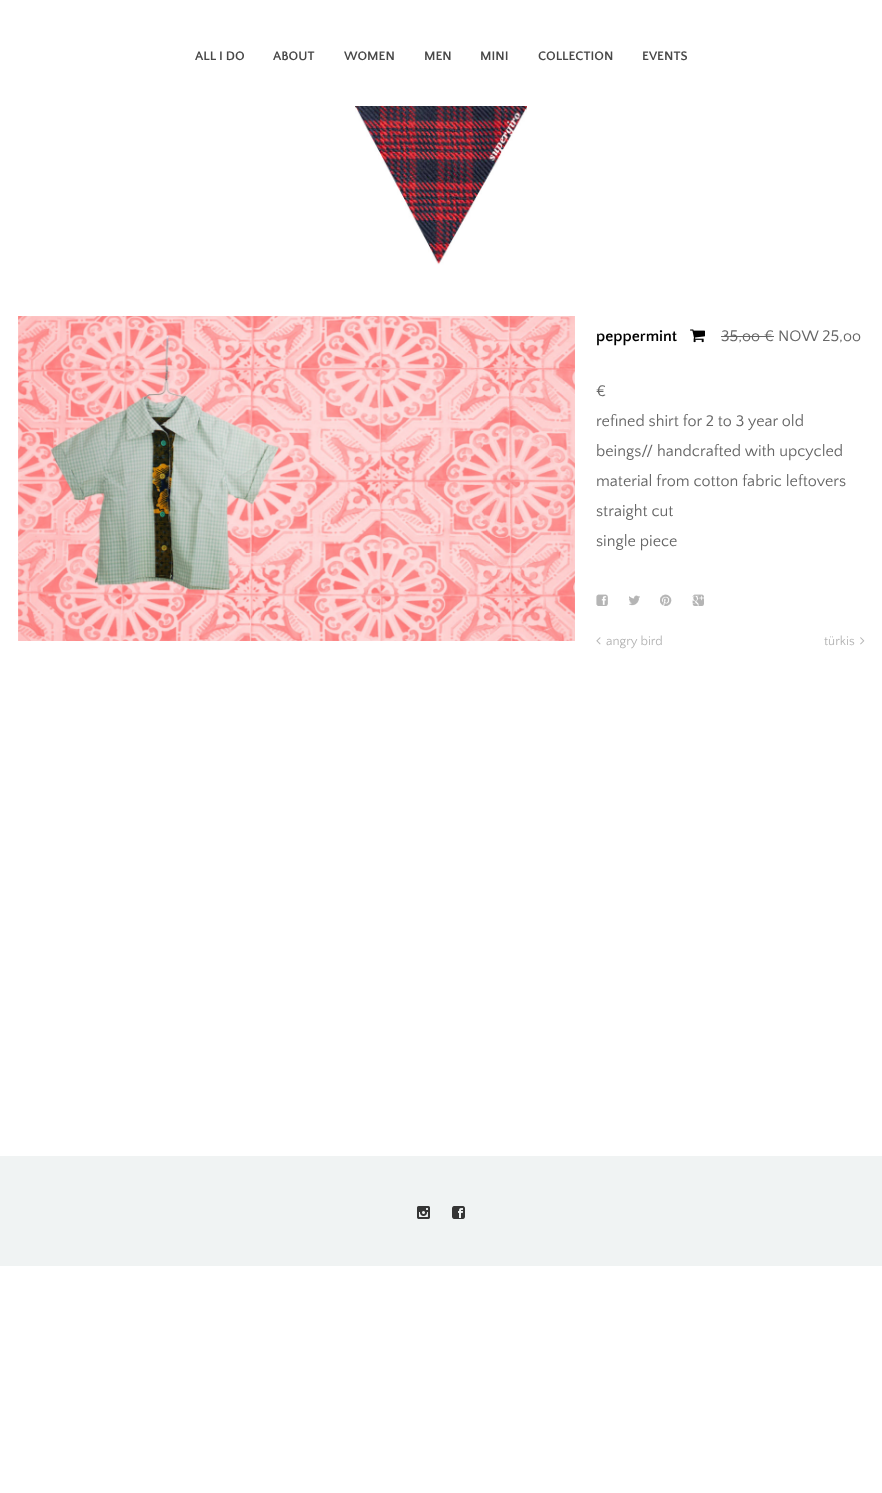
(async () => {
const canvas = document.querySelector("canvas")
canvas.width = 882
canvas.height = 1493
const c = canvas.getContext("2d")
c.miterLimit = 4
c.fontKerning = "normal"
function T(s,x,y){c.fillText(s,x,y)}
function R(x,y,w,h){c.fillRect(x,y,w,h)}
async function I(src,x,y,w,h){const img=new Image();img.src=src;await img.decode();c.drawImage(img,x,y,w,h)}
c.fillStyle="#fff"
R(0,0,882,1493)
c.font="bold 13px Quattrocento Sans"
c.fillStyle="#484848"
T("ALL I DO",195,60)
T("ABOUT",273,60)
T("WOMEN",344,60)
T("MEN",424,60)
T("MINI",480,60)
T("COLLECTION",538,60)
T("EVENTS",642,60)
await I("1.png",355,106,172,159)
await I("2.png",18,316,557,325)
c.font="bold 16px Quattrocento Sans"
c.fillStyle="#000"
T("peppermint",596,341)
await I("3.png",690,329,15,14)
c.font="16.1px Quattrocento Sans"
c.fillStyle="#666"
T("35,oo € NOW 25,oo",721,341)
R(721,336,53,1)
T("€",596,396)
T("refined shirt for 2 to 3 year old",596,426)
T("beings// handcrafted with upcycled",596,456)
T("material from cotton fabric leftovers",596,486)
T("straight cut",596,516)
T("single piece",596,546)
await I("4.png",596,594,12,12)
await I("5.png",629,595,11,11)
await I("6.png",660,594,12,12)
await I("7.png",692,594,12,12)
await I("8.png",596,637,5,8)
c.font="13px Quattrocento Sans"
c.fillStyle="#b5b5b5"
T("angry bird",606,645)
T("türkis",824,645)
await I("9.png",860,637,5,8)
c.fillStyle="#f0f3f3"
R(0,1156,882,110)
await I("10.png",417,1206,13,13)
await I("11.png",452,1206,13,13)
})()
